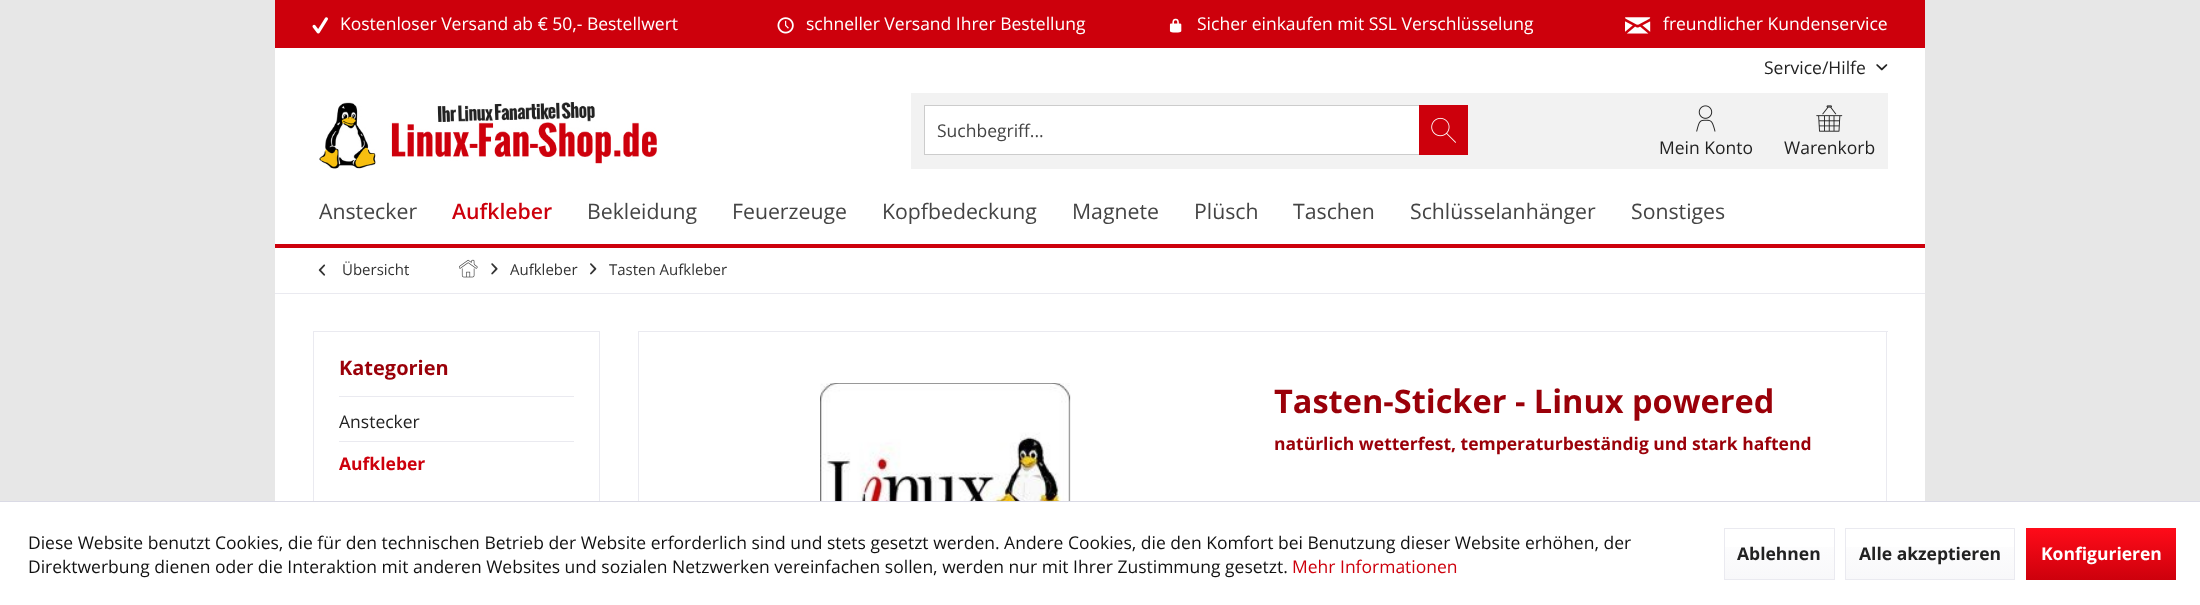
async function draw(canvas) {
  canvas.width = 2200
  canvas.height = 605
  const ctx = canvas.getContext('2d')
  ctx.miterLimit = 4
  ctx.fontKerning = 'normal'
  async function loadImage(src) {
    const img = new Image()
    img.src = src
    await img.decode()
    return img
  }
  let gradient

  ctx.fillStyle = '#e7e7e7'
  ctx.fillRect(0, 0, 2200, 605)
  ctx.fillStyle = '#fff'
  ctx.fillRect(275, 48, 1650, 196)
  ctx.fillStyle = '#cd000c'
  ctx.fillRect(275, 0, 1650, 48)
  ctx.drawImage(await loadImage('image0.png'), 312, 17, 16, 17)
  ctx.font = '17.5px Open Sans'
  ctx.fillStyle = '#fff'
  ctx.fillText('Kostenloser Versand ab € 50,- Bestellwert', 340, 30)
  ctx.drawImage(await loadImage('image1.png'), 777, 17, 17, 17)
  ctx.fillText('schneller Versand Ihrer Bestellung', 806, 30)
  ctx.drawImage(await loadImage('image2.png'), 1169, 18, 13, 15)
  ctx.fillText('Sicher einkaufen mit SSL Verschlüsselung', 1197, 30)
  ctx.drawImage(await loadImage('image3.png'), 1625, 17, 26, 17)
  ctx.fillText('freundlicher Kundenservice', 1663, 30)
  ctx.fillStyle = '#222'
  ctx.fillText('Service/Hilfe', 1764, 74)
  ctx.drawImage(await loadImage('image4.png'), 1876, 64, 12, 7)
  ctx.drawImage(await loadImage('image5.png'), 319, 102, 338, 67)
  ctx.fillStyle = '#f2f2f2'
  ctx.fillRect(911, 93, 977, 76)
  ctx.fillStyle = '#fff'
  ctx.fillRect(925, 106, 494, 48)
  ctx.strokeStyle = '#ccc'
  ctx.strokeRect(924.5, 105.5, 536, 49)
  ctx.fillStyle = '#444'
  ctx.fillText('Suchbegriff...', 937, 137)
  ctx.fillStyle = '#cd000c'
  ctx.fillRect(1419, 105, 49, 50)
  ctx.drawImage(await loadImage('image6.png'), 1431, 117, 25, 26)
  ctx.drawImage(await loadImage('image7.png'), 1696, 105, 20, 27)
  ctx.fillStyle = '#222'
  ctx.fillText('Mein Konto', 1659, 154)
  ctx.drawImage(await loadImage('image8.png'), 1816, 105, 27, 27)
  ctx.fillText('Warenkorb', 1784, 154)
  ctx.fillStyle = '#cd000c'
  ctx.fillRect(275, 244, 1650, 4)
  ctx.font = '21.25px Open Sans'
  ctx.fillStyle = '#444'
  ctx.fillText('Anstecker', 319, 219)
  ctx.font = '600 21.25px Open Sans'
  ctx.fillStyle = '#cd000c'
  ctx.fillText('Aufkleber', 452, 219)
  ctx.font = '21.25px Open Sans'
  ctx.fillStyle = '#444'
  ctx.fillText('Bekleidung', 587, 219)
  ctx.fillText('Feuerzeuge', 732, 219)
  ctx.fillText('Kopfbedeckung', 882, 219)
  ctx.fillText('Magnete', 1072, 219)
  ctx.fillText('Plüsch', 1194, 219)
  ctx.fillText('Taschen', 1293, 219)
  ctx.fillText('Schlüsselanhänger', 1410, 219)
  ctx.fillText('Sonstiges', 1631, 219)
  ctx.fillStyle = '#fff'
  ctx.fillRect(275, 248, 1650, 45)
  ctx.fillStyle = '#eaeaf0'
  ctx.fillRect(275, 293, 1650, 1)
  ctx.drawImage(await loadImage('image9.png'), 318, 264, 8, 12)
  ctx.font = '15px Open Sans'
  ctx.fillStyle = '#333'
  ctx.fillText('Übersicht', 342, 275)
  ctx.drawImage(await loadImage('image10.png'), 459, 259, 19, 19)
  ctx.drawImage(await loadImage('image11.png'), 491, 263, 7, 12)
  ctx.fillText('Aufkleber', 510, 275)
  ctx.drawImage(await loadImage('image12.png'), 590, 263, 7, 12)
  ctx.fillText('Tasten Aufkleber', 609, 275)
  ctx.fillStyle = '#fff'
  ctx.fillRect(275, 294, 1650, 207)
  ctx.fillStyle = '#eaeaf0'
  ctx.fillRect(313, 331, 287, 1)
  ctx.fillRect(599, 331, 1, 69)
  ctx.fillRect(313, 331, 1, 69)
  ctx.font = 'bold 20px Open Sans'
  ctx.fillStyle = '#9a0009'
  ctx.fillText('Kategorien', 339, 375)
  ctx.fillStyle = '#eaeaf0'
  ctx.fillRect(339, 396, 235, 1)
  ctx.fillRect(599, 400, 1, 101)
  ctx.fillRect(313, 400, 1, 101)
  ctx.fillRect(339, 441, 235, 1)
  ctx.font = '17.5px Open Sans'
  ctx.fillStyle = '#222'
  ctx.fillText('Anstecker', 339, 428)
  ctx.font = 'bold 17.5px Open Sans'
  ctx.fillStyle = '#cd000c'
  ctx.fillText('Aufkleber', 339, 470)
  ctx.fillStyle = '#eaeaf0'
  ctx.fillRect(638, 331, 1250, 1)
  ctx.fillRect(1886, 331, 1, 170)
  ctx.fillRect(638, 331, 1, 170)
  ctx.drawImage(await loadImage('image13.png'), 820, 383, 251, 118)
  ctx.font = 'bold 32.5px Open Sans'
  ctx.fillStyle = '#9a0009'
  ctx.fillText('Tasten-Sticker - Linux powered', 1274, 413)
  ctx.font = 'bold 17.5px Open Sans'
  ctx.fillText('natürlich wetterfest, temperaturbeständig und stark haftend', 1274, 450)
  ctx.fillStyle = '#fff'
  ctx.fillRect(0, 502, 2200, 103)
  ctx.fillStyle = '#dadae5'
  ctx.fillRect(0, 501, 2200, 1)
  ctx.font = '17.5px Open Sans'
  ctx.fillStyle = '#111'
  ctx.fillText('Diese Website benutzt Cookies, die für den technischen Betrieb der Website erforderlich sind und stets gesetzt werden. Andere Cookies, die den Komfort bei Benutzung dieser Website erhöhen, der', 28, 549)
  ctx.fillText('Direktwerbung dienen oder die Interaktion mit anderen Websites und sozialen Netzwerken vereinfachen sollen, werden nur mit Ihrer Zustimmung gesetzt.', 28, 573)
  ctx.fillStyle = '#cd000c'
  ctx.fillText('Mehr Informationen', 1292, 573)
  gradient = ctx.createLinearGradient(1779, 529, 1779, 579)
  gradient.addColorStop(0, '#fff')
  gradient.addColorStop(1, '#f8f8fa')
  ctx.fillStyle = gradient
  ctx.fillRect(1725, 547, 109, 32)
  ctx.strokeStyle = '#eaeaf0'
  ctx.strokeRect(1724.5, 528.5, 110, 51)
  ctx.font = 'bold 17.5px Open Sans'
  ctx.fillStyle = '#222'
  ctx.fillText('Ablehnen', 1737, 560)
  gradient = ctx.createLinearGradient(1930, 529, 1930, 579)
  gradient.addColorStop(0, '#fff')
  gradient.addColorStop(1, '#f8f8fa')
  ctx.fillStyle = gradient
  ctx.fillRect(1846, 547, 168, 32)
  ctx.strokeRect(1845.5, 528.5, 169, 51)
  ctx.fillStyle = '#222'
  ctx.fillText('Alle akzeptieren', 1859, 560)
  gradient = ctx.createLinearGradient(2101, 528, 2101, 580)
  gradient.addColorStop(0, '#ff0b19')
  gradient.addColorStop(1, '#cd000c')
  ctx.fillStyle = gradient
  ctx.fillRect(2026, 528, 150, 52)
  ctx.fillStyle = '#fff'
  ctx.fillText('Konfigurieren', 2041, 560)
}

draw(document.querySelector('canvas'))
